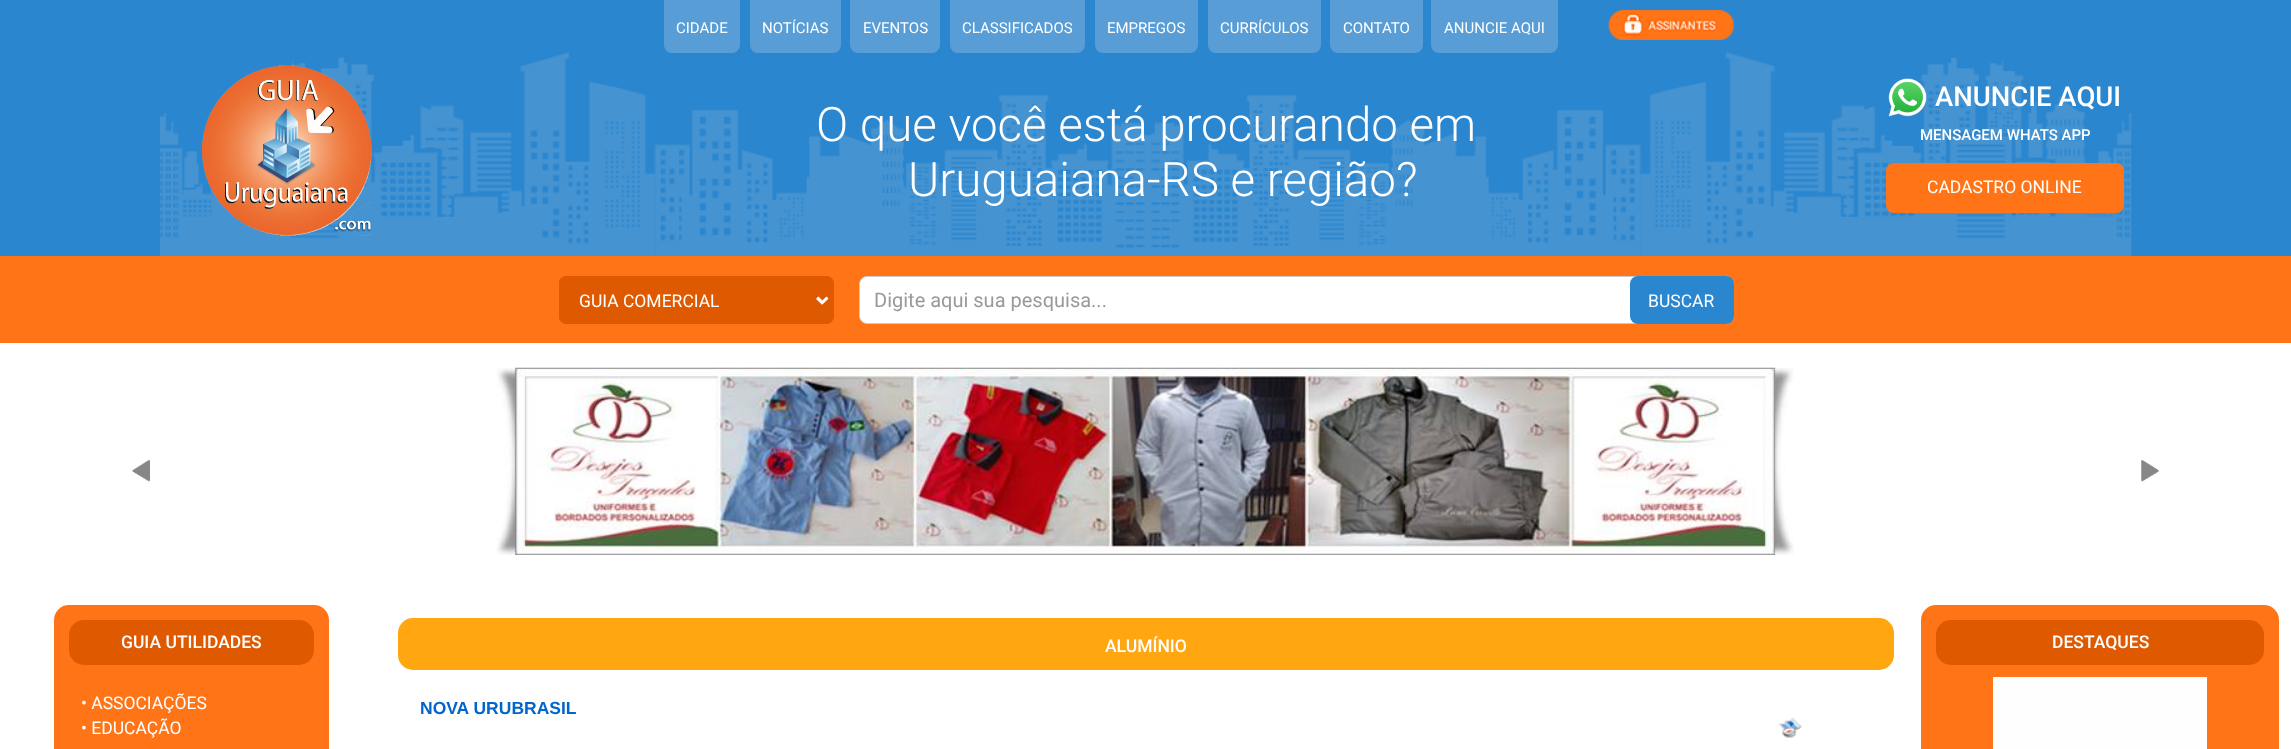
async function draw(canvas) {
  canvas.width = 2291
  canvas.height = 749
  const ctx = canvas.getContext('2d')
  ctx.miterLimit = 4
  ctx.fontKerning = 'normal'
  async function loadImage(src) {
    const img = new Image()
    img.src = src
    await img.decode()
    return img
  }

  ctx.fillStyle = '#2a86cf'
  ctx.fillRect(0, 0, 2291, 749)
  ctx.drawImage(await loadImage('image1.png'), 160, 52, 1972, 204)
  ctx.fillStyle = '#589dd6'
  ctx.beginPath()
  ctx.roundRect(664, 0, 76, 53, [0, 0, 8, 8])
  ctx.fill()
  ctx.font = '15px Roboto'
  ctx.fillStyle = '#fff'
  ctx.fillText('CIDADE', 676, 33)
  ctx.fillStyle = '#589dd6'
  ctx.beginPath()
  ctx.roundRect(750, 0, 91, 53, [0, 0, 8, 8])
  ctx.fill()
  ctx.fillStyle = '#fff'
  ctx.fillText('NOTÍCIAS', 762, 33)
  ctx.fillStyle = '#589dd6'
  ctx.beginPath()
  ctx.roundRect(850, 0, 90, 53, [0, 0, 8, 8])
  ctx.fill()
  ctx.fillStyle = '#fff'
  ctx.fillText('EVENTOS', 863, 33)
  ctx.fillStyle = '#589dd6'
  ctx.beginPath()
  ctx.roundRect(950, 0, 135, 53, [0, 0, 8, 8])
  ctx.fill()
  ctx.fillStyle = '#fff'
  ctx.fillText('CLASSIFICADOS', 962, 33)
  ctx.fillStyle = '#589dd6'
  ctx.beginPath()
  ctx.roundRect(1095, 0, 103, 53, [0, 0, 8, 8])
  ctx.fill()
  ctx.fillStyle = '#fff'
  ctx.fillText('EMPREGOS', 1107, 33)
  ctx.fillStyle = '#589dd6'
  ctx.beginPath()
  ctx.roundRect(1208, 0, 113, 53, [0, 0, 8, 8])
  ctx.fill()
  ctx.fillStyle = '#fff'
  ctx.fillText('CURRÍCULOS', 1220, 33)
  ctx.fillStyle = '#589dd6'
  ctx.beginPath()
  ctx.roundRect(1330, 0, 93, 53, [0, 0, 8, 8])
  ctx.fill()
  ctx.fillStyle = '#fff'
  ctx.fillText('CONTATO', 1343, 33)
  ctx.fillStyle = '#589dd6'
  ctx.beginPath()
  ctx.roundRect(1431, 0, 127, 53, [0, 0, 8, 8])
  ctx.fill()
  ctx.fillStyle = '#fff'
  ctx.fillText('ANUNCIE AQUI', 1444, 33)
  ctx.drawImage(await loadImage('image0.png'), 1608, 10, 126, 30)
  ctx.drawImage(await loadImage('image2.png'), 202, 65, 171, 171)
  ctx.font = '300 47.5px Roboto'
  ctx.fillText('O que você está procurando em', 816, 141)
  ctx.fillText('Uruguaiana-RS e região?', 908, 196)
  ctx.drawImage(await loadImage('image3.png'), 1888, 78, 39, 39)
  ctx.font = '500 27.5px Roboto'
  ctx.fillText('ANUNCIE AQUI', 1935, 106)
  ctx.font = '500 15px Roboto'
  ctx.fillText('MENSAGEM WHATS APP', 1920, 140)
  ctx.fillStyle = '#ff7417'
  ctx.beginPath()
  ctx.roundRect(1886, 163, 238, 50, 8)
  ctx.fill()
  ctx.font = '17.5px Roboto'
  ctx.fillStyle = '#fff'
  ctx.fillText('CADASTRO ONLINE', 1927, 193)
  ctx.fillStyle = '#ff7417'
  ctx.fillRect(0, 256, 2291, 87)
  ctx.fillStyle = '#df5900'
  ctx.beginPath()
  ctx.roundRect(559, 276, 275, 48, 8)
  ctx.fill()
  ctx.drawImage(await loadImage('image4.png'), 559, 276, 273, 48)
  ctx.beginPath()
  ctx.roundRect(559.5, 276.5, 274, 47, 7.5)
  ctx.strokeStyle = '#df5900'
  ctx.stroke()
  ctx.beginPath()
  ctx.moveTo(817, 298)
  ctx.lineTo(822, 303)
  ctx.lineTo(827, 298)
  ctx.strokeStyle = '#fff'
  ctx.lineWidth = 2.5
  ctx.stroke()
  ctx.fillStyle = '#fff'
  ctx.fillText('GUIA COMERCIAL', 579, 307)
  ctx.beginPath()
  ctx.roundRect(859.5, 276.5, 874, 47, 7.5)
  ctx.fill()
  ctx.strokeStyle = '#ccc'
  ctx.lineWidth = 1
  ctx.stroke()
  ctx.font = '20px Roboto'
  ctx.fillStyle = '#999'
  ctx.fillText('Digite aqui sua pesquisa...', 874, 307)
  ctx.fillStyle = '#2a86cf'
  ctx.beginPath()
  ctx.roundRect(1630, 276, 104, 48, 8)
  ctx.fill()
  ctx.font = '17.5px Roboto'
  ctx.fillStyle = '#fff'
  ctx.fillText('BUSCAR', 1648, 307)
  ctx.fillRect(0, 343, 2291, 406)
  ctx.drawImage(await loadImage('image5.png'), 132, 460, 18, 22)
  ctx.drawImage(await loadImage('image6.png'), 496, 367, 1298, 188)
  ctx.drawImage(await loadImage('image7.png'), 2141, 460, 18, 22)
  ctx.fillStyle = '#ff7417'
  ctx.beginPath()
  ctx.roundRect(54, 605, 275, 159, 15)
  ctx.fill()
  ctx.fillStyle = '#df5900'
  ctx.beginPath()
  ctx.roundRect(69, 620, 245, 45, 15)
  ctx.fill()
  ctx.font = '500 17.5px Roboto'
  ctx.fillStyle = '#fff'
  ctx.fillText('GUIA UTILIDADES', 121, 648)
  ctx.font = '17.5px Roboto'
  ctx.fillText('• ASSOCIAÇÕES', 81, 709)
  ctx.fillText('• EDUCAÇÃO', 81, 734)
  ctx.fillStyle = '#ffa610'
  ctx.beginPath()
  ctx.roundRect(398, 618, 1496, 52, 15)
  ctx.fill()
  ctx.font = '500 17.5px Roboto'
  ctx.fillStyle = '#fff'
  ctx.fillText('ALUMÍNIO', 1105, 652)
  ctx.font = 'bold 17.5px Liberation Sans'
  ctx.fillStyle = '#06c'
  ctx.fillText('NOVA URUBRASIL', 420, 714)
  ctx.drawImage(await loadImage('image8.png'), 1778, 717, 24, 21)
  ctx.fillStyle = '#ff7417'
  ctx.beginPath()
  ctx.roundRect(1921, 605, 358, 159, 15)
  ctx.fill()
  ctx.fillStyle = '#df5900'
  ctx.beginPath()
  ctx.roundRect(1936, 620, 328, 45, 15)
  ctx.fill()
  ctx.font = '500 17.5px Roboto'
  ctx.fillStyle = '#fff'
  ctx.fillText('DESTAQUES', 2052, 648)
  ctx.fillStyle = '#fefefe'
  ctx.fillRect(1993, 677, 214, 72)
}

draw(document.querySelector('canvas'))
